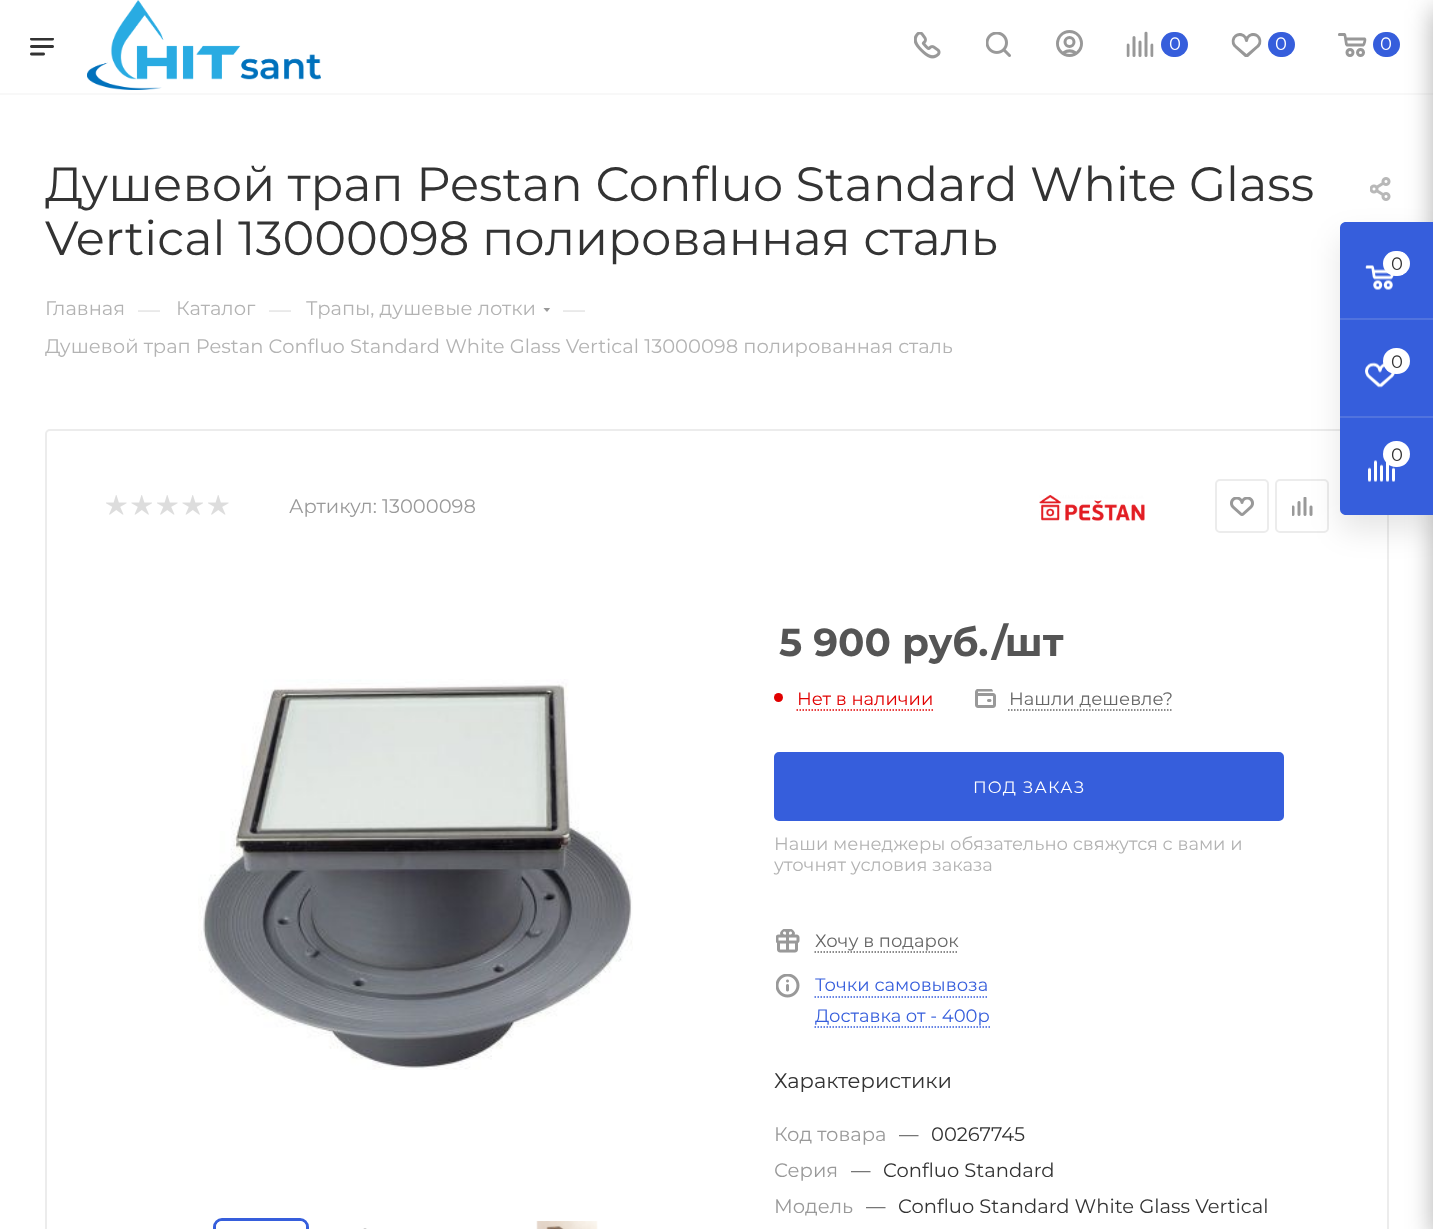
async function draw(canvas) {
  canvas.width = 1433
  canvas.height = 1229
  const ctx = canvas.getContext('2d')
  ctx.miterLimit = 4
  ctx.fontKerning = 'normal'
  async function loadImage(src) {
    const img = new Image()
    img.src = src
    await img.decode()
    return img
  }

  ctx.fillStyle = '#fff'
  ctx.fillRect(0, 0, 1433, 1229)
  ctx.fillStyle = '#f8f8f8'
  ctx.fillRect(0, 93, 1433, 2)
  ctx.drawImage(await loadImage('image0.png'), 30, 38, 24, 18)
  ctx.drawImage(await loadImage('image1.png'), 87, 0, 234, 90)
  ctx.drawImage(await loadImage('image2.png'), 914, 32, 27, 27)
  ctx.drawImage(await loadImage('image3.png'), 986, 32, 25, 25)
  ctx.drawImage(await loadImage('image4.png'), 1056, 30, 27, 27)
  ctx.drawImage(await loadImage('image5.png'), 1126, 31, 28, 26)
  ctx.fillStyle = '#365edc'
  ctx.beginPath()
  ctx.roundRect(1161, 32, 27, 25, 12.5)
  ctx.fill()
  ctx.font = '18px Montserrat'
  ctx.fillStyle = '#fff'
  ctx.fillText('0', 1169, 50)
  ctx.drawImage(await loadImage('image6.png'), 1231, 33, 31, 24)
  ctx.fillStyle = '#365edc'
  ctx.beginPath()
  ctx.roundRect(1268, 32, 27, 25, 12.5)
  ctx.fill()
  ctx.fillStyle = '#fff'
  ctx.fillText('0', 1275, 50)
  ctx.drawImage(await loadImage('image7.png'), 1338, 33, 29, 24)
  ctx.fillStyle = '#365edc'
  ctx.beginPath()
  ctx.roundRect(1373, 32, 27, 25, 12.5)
  ctx.fill()
  ctx.fillStyle = '#fff'
  ctx.fillText('0', 1380, 50)
  ctx.font = '48px Montserrat'
  ctx.fillStyle = '#333'
  ctx.fillText('Душевой трап Pestan Confluo Standard White Glass', 45, 201)
  ctx.fillText('Vertical 13000098 полированная сталь', 45, 255)
  ctx.drawImage(await loadImage('image8.png'), 1370, 177, 21, 24)
  ctx.font = '19.5px Montserrat'
  ctx.fillStyle = '#b3b3b3'
  ctx.fillText('Главная', 45, 315)
  ctx.font = '22px Montserrat'
  ctx.fillStyle = '#ddd'
  ctx.fillText('—', 138, 317)
  ctx.font = '19.5px Montserrat'
  ctx.fillStyle = '#b3b3b3'
  ctx.fillText('Каталог', 176, 315)
  ctx.font = '22px Montserrat'
  ctx.fillStyle = '#ddd'
  ctx.fillText('—', 269, 317)
  ctx.font = '19.5px Montserrat'
  ctx.fillStyle = '#b3b3b3'
  ctx.fillText('Трапы, душевые лотки', 306, 315)
  ctx.save()
  ctx.beginPath()
  ctx.rect(543, 308, 8, 5)
  ctx.clip()
  ctx.fillStyle = '#999'
  ctx.beginPath()
  ctx.moveTo(543, 307.5)
  ctx.lineTo(550.5, 307.5)
  ctx.lineTo(547, 312)
  ctx.closePath()
  ctx.fill('evenodd')
  ctx.restore()
  ctx.font = '22px Montserrat'
  ctx.fillStyle = '#ddd'
  ctx.fillText('—', 563, 317)
  ctx.font = '19.5px Montserrat'
  ctx.fillStyle = '#b3b3b3'
  ctx.fillText('Душевой трап Pestan Confluo Standard White Glass Vertical 13000098 полированная сталь', 45, 353)
  ctx.beginPath()
  ctx.roundRect(46, 430, 1342, 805, 4)
  ctx.strokeStyle = '#ececec'
  ctx.lineWidth = 2
  ctx.stroke()
  ctx.drawImage(await loadImage('image9.png'), 106, 495, 21, 20)
  ctx.drawImage(await loadImage('image10.png'), 131, 495, 21, 20)
  ctx.drawImage(await loadImage('image9.png'), 157, 495, 21, 20)
  ctx.drawImage(await loadImage('image10.png'), 182, 495, 21, 20)
  ctx.drawImage(await loadImage('image9.png'), 208, 495, 21, 20)
  ctx.fillStyle = '#999'
  ctx.fillText('Артикул: 13000098', 289, 513)
  ctx.drawImage(await loadImage('image11.png'), 1039, 495, 106, 26)
  ctx.beginPath()
  ctx.roundRect(1216, 480, 52, 52, 4)
  ctx.stroke()
  ctx.drawImage(await loadImage('image12.png'), 1230, 497, 24, 19)
  ctx.beginPath()
  ctx.roundRect(1276, 480, 52, 52, 4)
  ctx.stroke()
  ctx.drawImage(await loadImage('image13.png'), 1292, 497, 21, 19)
  ctx.drawImage(await loadImage('image14.png'), 198, 679, 435, 391)
  ctx.beginPath()
  ctx.roundRect(214.5, 1219.5, 93, 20, 7.5)
  ctx.strokeStyle = '#365edc'
  ctx.lineWidth = 3
  ctx.stroke()
  ctx.drawImage(await loadImage('image15.png'), 216, 1221, 90, 6)
  ctx.drawImage(await loadImage('image16.png'), 363, 1228, 4, 1)
  ctx.drawImage(await loadImage('image17.png'), 536, 1221, 62, 8)
  ctx.font = 'bold 39px Montserrat'
  ctx.fillStyle = '#555'
  ctx.fillText('5 900 руб./шт', 779, 656)
  ctx.fillStyle = '#e10000'
  ctx.beginPath()
  ctx.arc(778.5, 697.5, 4.5, 0, 2 * Math.PI)
  ctx.fill()
  ctx.font = '18px Montserrat'
  ctx.fillText('Нет в наличии', 797, 705)
  ctx.beginPath()
  ctx.moveTo(796.5, 710)
  ctx.lineTo(933, 710)
  ctx.strokeStyle = '#e10000'
  ctx.lineWidth = 1.5
  ctx.setLineDash([1.5, 1.5])
  ctx.stroke()
  ctx.drawImage(await loadImage('image18.png'), 975, 689, 21, 19)
  ctx.fillStyle = '#666'
  ctx.fillText('Нашли дешевле?', 1009, 705)
  ctx.beginPath()
  ctx.moveTo(1008, 710)
  ctx.lineTo(1173, 710)
  ctx.strokeStyle = '#666'
  ctx.stroke()
  ctx.fillStyle = '#365edc'
  ctx.beginPath()
  ctx.roundRect(775, 753, 508, 67, 4)
  ctx.fill()
  ctx.strokeStyle = '#365edc'
  ctx.lineWidth = 2
  ctx.setLineDash([])
  ctx.stroke()
  ctx.letterSpacing = '1.25px'
  ctx.font = '16.5px Montserrat'
  ctx.fillStyle = '#fff'
  ctx.fillText('ПОД ЗАКАЗ', 973, 793)
  ctx.letterSpacing = '0px'
  ctx.font = '18px Montserrat'
  ctx.fillStyle = '#b3b3b3'
  ctx.fillText('Наши менеджеры обязательно свяжутся с вами и', 774, 850)
  ctx.fillText('уточнят условия заказа', 774, 871)
  ctx.drawImage(await loadImage('image19.png'), 776, 929, 24, 24)
  ctx.fillStyle = '#666'
  ctx.fillText('Хочу в подарок', 815, 947)
  ctx.beginPath()
  ctx.moveTo(814.5, 952)
  ctx.lineTo(958.5, 952)
  ctx.strokeStyle = '#666'
  ctx.lineWidth = 1.5
  ctx.setLineDash([1.5, 1.5])
  ctx.stroke()
  ctx.drawImage(await loadImage('image20.png'), 776, 974, 24, 24)
  ctx.fillStyle = '#365edc'
  ctx.fillText('Точки самовывоза', 815, 991)
  ctx.beginPath()
  ctx.moveTo(814.5, 997)
  ctx.lineTo(988.5, 997)
  ctx.strokeStyle = '#365edc'
  ctx.stroke()
  ctx.fillText('Доставка от - 400р', 815, 1022)
  ctx.beginPath()
  ctx.moveTo(814.5, 1027)
  ctx.lineTo(990, 1027)
  ctx.stroke()
  ctx.font = '21px Montserrat'
  ctx.fillStyle = '#333'
  ctx.fillText('Характеристики', 774, 1088)
  ctx.font = '19.5px Montserrat'
  ctx.fillStyle = '#999'
  ctx.fillText('Код товара', 774, 1141)
  ctx.fillStyle = '#555'
  ctx.fillText('—', 899, 1141)
  ctx.fillStyle = '#333'
  ctx.fillText('00267745', 931, 1141)
  ctx.fillStyle = '#999'
  ctx.fillText('Серия', 774, 1177)
  ctx.fillStyle = '#555'
  ctx.fillText('—', 851, 1177)
  ctx.fillStyle = '#333'
  ctx.fillText('Confluo Standard', 883, 1177)
  ctx.fillStyle = '#999'
  ctx.fillText('Модель', 774, 1213)
  ctx.fillStyle = '#555'
  ctx.fillText('—', 866, 1213)
  ctx.fillStyle = '#333'
  ctx.fillText('Confluo Standard White Glass Vertical', 898, 1213)
  ctx.fillStyle = '#2c2c2c66'
  ctx.filter = 'blur(13.5px)'
  ctx.beginPath()
  ctx.roundRect(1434, 9, 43, 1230, 3)
  ctx.fill()
  ctx.filter = 'none'
  ctx.fillStyle = '#0000001a'
  ctx.filter = 'blur(15px)'
  ctx.beginPath()
  ctx.roundRect(1340, 237, 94, 293, 6)
  ctx.fill()
  ctx.filter = 'none'
  ctx.fillStyle = '#365edc'
  ctx.beginPath()
  ctx.moveTo(1346, 222)
  ctx.lineTo(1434, 222)
  ctx.lineTo(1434, 515)
  ctx.lineTo(1346, 515)
  ctx.bezierCurveTo(1342.5, 515, 1340, 512.5, 1340, 509)
  ctx.lineTo(1340, 228)
  ctx.bezierCurveTo(1340, 224.5, 1342.5, 222, 1346, 222)
  ctx.closePath()
  ctx.fill()
  ctx.fillStyle = '#5173de'
  ctx.fillRect(1340, 318, 93, 2)
  ctx.drawImage(await loadImage('image21.png'), 1365, 265, 29, 25)
  ctx.fillStyle = '#fff'
  ctx.beginPath()
  ctx.roundRect(1383, 251, 27, 25, 12.5)
  ctx.fill()
  ctx.font = '18px Montserrat'
  ctx.fillStyle = '#333'
  ctx.fillText('0', 1391, 270)
  ctx.fillStyle = '#fff'
  ctx.fillRect(1402, 252, 1, 23)
  ctx.fillStyle = '#5173de'
  ctx.fillRect(1340, 416, 93, 2)
  ctx.drawImage(await loadImage('image22.png'), 1365, 362, 30, 26)
  ctx.fillStyle = '#fff'
  ctx.beginPath()
  ctx.roundRect(1383, 348, 27, 26, 13)
  ctx.fill()
  ctx.fillStyle = '#333'
  ctx.fillText('0', 1391, 368)
  ctx.drawImage(await loadImage('image23.png'), 1368, 460, 27, 22)
  ctx.fillStyle = '#fff'
  ctx.beginPath()
  ctx.roundRect(1383, 441, 27, 26, 13)
  ctx.fill()
  ctx.fillStyle = '#333'
  ctx.fillText('0', 1391, 461)
}

draw(document.querySelector('canvas'))
